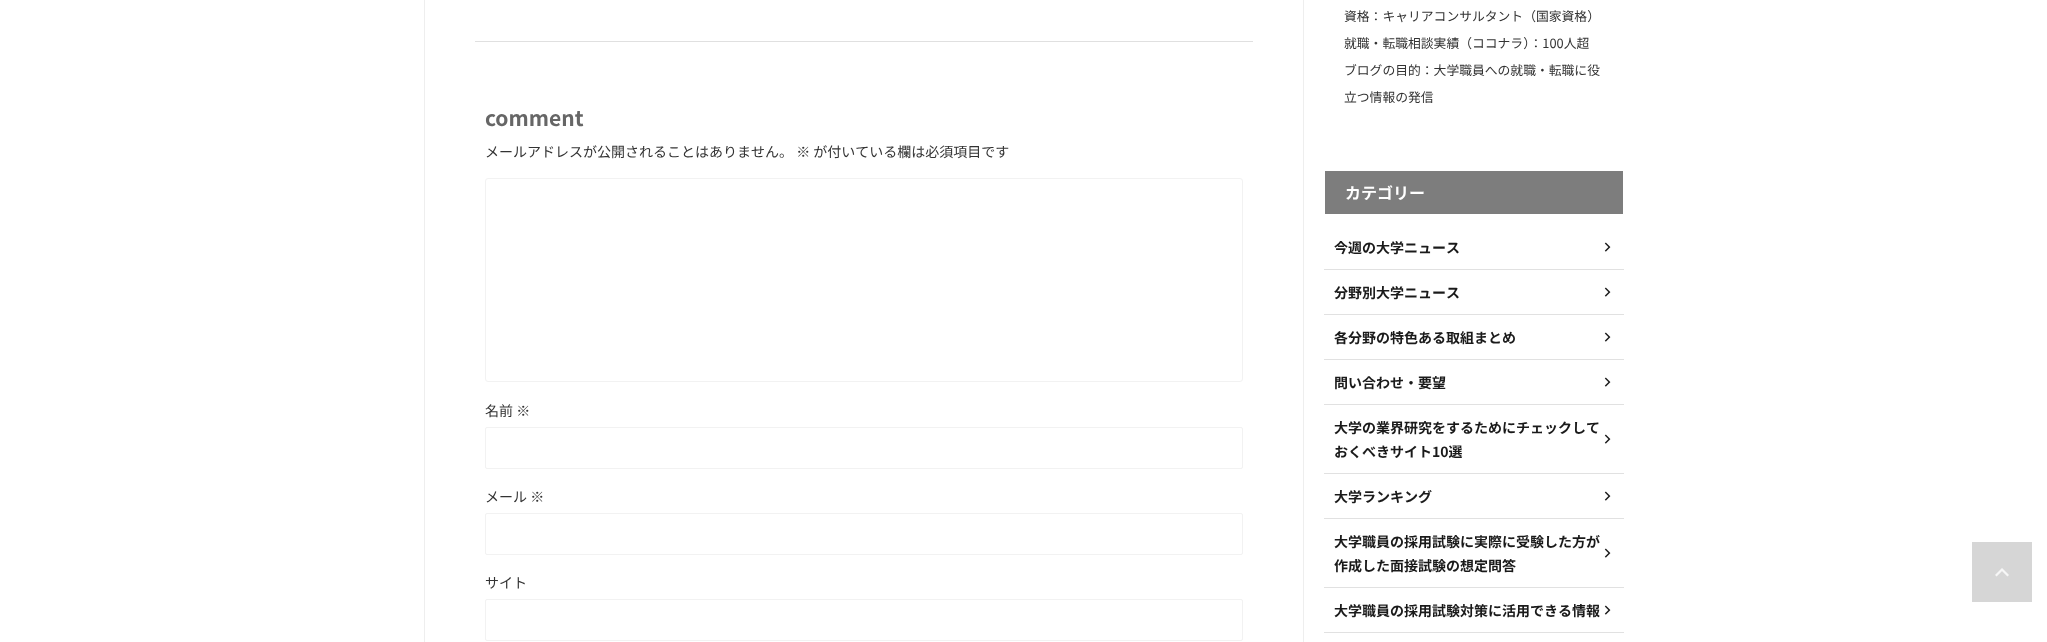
async function draw(canvas) {
  canvas.width = 2047
  canvas.height = 642
  const ctx = canvas.getContext('2d')
  ctx.miterLimit = 4
  ctx.fontKerning = 'normal'
  async function loadImage(src) {
    const img = new Image()
    img.src = src
    await img.decode()
    return img
  }

  ctx.fillStyle = '#fff'
  ctx.fillRect(0, 0, 2047, 642)
  ctx.strokeStyle = '#eee'
  ctx.strokeRect(424.5, -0.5, 879, 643)
  ctx.fillStyle = '#e0e0e0'
  ctx.fillRect(475, 41, 778, 1)
  ctx.font = 'bold 21px Noto Sans JP'
  ctx.fillStyle = '#666'
  ctx.fillText('comment', 485, 126)
  ctx.font = '14px Noto Sans JP'
  ctx.fillStyle = '#333'
  ctx.fillText('メールアドレスが公開されることはありません。 ※ が付いている欄は必須項目です', 485, 157)
  ctx.beginPath()
  ctx.roundRect(485.5, 178.5, 757, 203, 2.5)
  ctx.strokeStyle = '#f2f2f2'
  ctx.stroke()
  ctx.fillText('名前 ※', 485, 416)
  ctx.beginPath()
  ctx.roundRect(485.5, 427.5, 757, 41, 1.5)
  ctx.stroke()
  ctx.fillText('メール ※', 485, 502)
  ctx.beginPath()
  ctx.roundRect(485.5, 513.5, 757, 41, 1.5)
  ctx.stroke()
  ctx.fillText('サイト', 485, 588)
  ctx.beginPath()
  ctx.roundRect(485.5, 599.5, 757, 41, 1.5)
  ctx.stroke()
  ctx.font = '12.8px Noto Sans JP'
  ctx.fillText('資格：キャリアコンサルタント（国家資格）', 1344, 21)
  ctx.fillText('就職・転職相談実績（ココナラ）：100人超', 1344, 48)
  ctx.fillText('ブログの目的：大学職員への就職・転職に役', 1344, 75)
  ctx.fillText('立つ情報の発信', 1344, 102)
  ctx.fillStyle = '#7d7d7d'
  ctx.fillRect(1325, 171, 298, 43)
  ctx.font = 'bold 16px Noto Sans JP'
  ctx.fillStyle = '#fff'
  ctx.fillText('カテゴリー', 1345, 199)
  ctx.fillStyle = '#e1e1e1'
  ctx.fillRect(1324, 269, 300, 1)
  ctx.font = 'bold 14px Noto Sans JP'
  ctx.fillStyle = '#1a1a1a'
  ctx.fillText('今週の大学ニュース', 1334, 253)
  ctx.drawImage(await loadImage('image0.png'), 1604, 242, 7, 10)
  ctx.fillStyle = '#e1e1e1'
  ctx.fillRect(1324, 314, 300, 1)
  ctx.fillStyle = '#1a1a1a'
  ctx.fillText('分野別大学ニュース', 1334, 298)
  ctx.drawImage(await loadImage('image0.png'), 1604, 287, 7, 10)
  ctx.fillStyle = '#e1e1e1'
  ctx.fillRect(1324, 359, 300, 1)
  ctx.fillStyle = '#1a1a1a'
  ctx.fillText('各分野の特色ある取組まとめ', 1334, 343)
  ctx.drawImage(await loadImage('image0.png'), 1604, 332, 7, 10)
  ctx.fillStyle = '#e1e1e1'
  ctx.fillRect(1324, 404, 300, 1)
  ctx.fillStyle = '#1a1a1a'
  ctx.fillText('問い合わせ・要望', 1334, 388)
  ctx.drawImage(await loadImage('image0.png'), 1604, 377, 7, 10)
  ctx.fillStyle = '#e1e1e1'
  ctx.fillRect(1324, 473, 300, 1)
  ctx.fillStyle = '#1a1a1a'
  ctx.fillText('大学の業界研究をするためにチェックして', 1334, 433)
  ctx.fillText('おくべきサイト10選', 1334, 457)
  ctx.drawImage(await loadImage('image0.png'), 1604, 434, 7, 10)
  ctx.fillStyle = '#e1e1e1'
  ctx.fillRect(1324, 518, 300, 1)
  ctx.fillStyle = '#1a1a1a'
  ctx.fillText('大学ランキング', 1334, 502)
  ctx.drawImage(await loadImage('image0.png'), 1604, 491, 7, 10)
  ctx.fillStyle = '#e1e1e1'
  ctx.fillRect(1324, 587, 300, 1)
  ctx.fillStyle = '#1a1a1a'
  ctx.fillText('大学職員の採用試験に実際に受験した方が', 1334, 547)
  ctx.fillText('作成した面接試験の想定問答', 1334, 571)
  ctx.drawImage(await loadImage('image0.png'), 1604, 548, 7, 10)
  ctx.fillStyle = '#e1e1e1'
  ctx.fillRect(1324, 632, 300, 1)
  ctx.fillStyle = '#1a1a1a'
  ctx.fillText('大学職員の採用試験対策に活用できる情報', 1334, 616)
  ctx.drawImage(await loadImage('image0.png'), 1604, 605, 7, 10)
  ctx.fillStyle = '#d6d6d6'
  ctx.fillRect(1972, 542, 60, 60)
  ctx.drawImage(await loadImage('image1.png'), 1995, 568, 14, 9)
}

draw(document.querySelector('canvas'))
